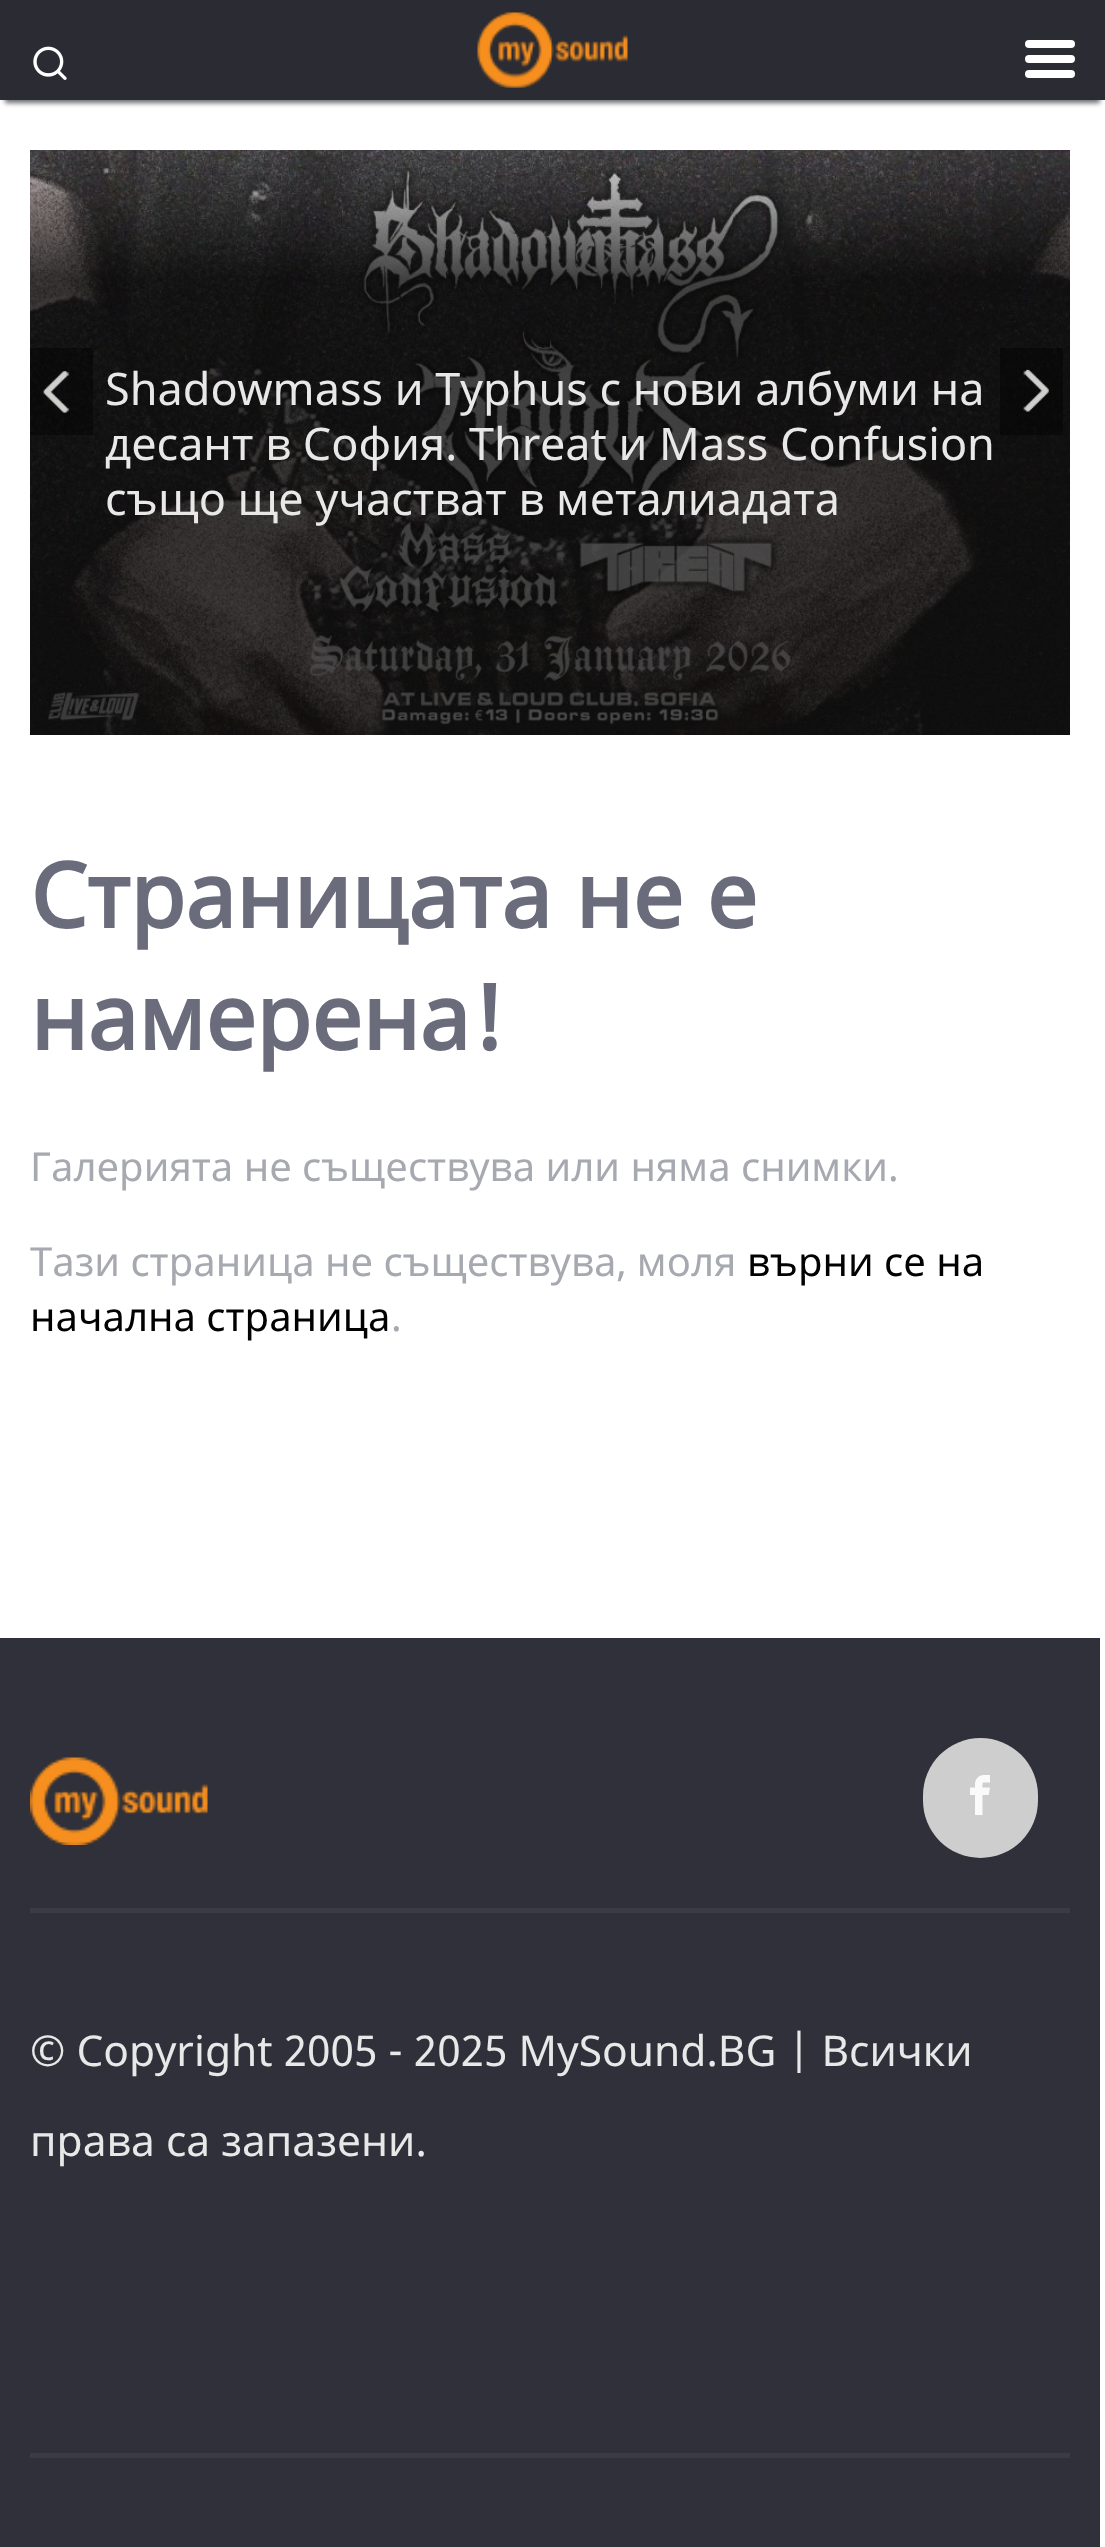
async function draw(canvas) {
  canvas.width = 1105
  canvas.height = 2547
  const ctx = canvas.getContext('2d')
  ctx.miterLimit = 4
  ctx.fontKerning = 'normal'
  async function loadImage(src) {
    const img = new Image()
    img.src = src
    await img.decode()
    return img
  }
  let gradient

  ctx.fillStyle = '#fff'
  ctx.fillRect(0, 0, 1105, 2547)
  ctx.fillStyle = '#2a2b35b3'
  ctx.filter = 'blur(2.5px)'
  ctx.beginPath()
  ctx.rect(5, 13, 1095, 90)
  ctx.fill()
  ctx.filter = 'none'
  ctx.fillStyle = '#2a2b33'
  ctx.fillRect(0, 0, 1105, 100)
  ctx.drawImage(await loadImage('image0.png'), 33, 46, 34, 34)
  ctx.drawImage(await loadImage('image1.png'), 477, 12, 151, 76)
  ctx.fillStyle = '#fff'
  ctx.beginPath()
  ctx.roundRect(1025, 40, 50, 8, 4)
  ctx.fill()
  ctx.beginPath()
  ctx.roundRect(1025, 55, 50, 8, 4)
  ctx.fill()
  ctx.beginPath()
  ctx.roundRect(1025, 70, 50, 8, 4)
  ctx.fill()
  ctx.drawImage(await loadImage('image3.png'), 30, 150, 1040, 585)
  gradient = ctx.createLinearGradient(550, 150, 550, 735)
  gradient.addColorStop(0, '#00000000')
  gradient.addColorStop(0.22, '#000000b3')
  ctx.fillStyle = gradient
  ctx.fillRect(30, 155, 1040, 580)
  ctx.fillStyle = '#00000066'
  ctx.fillRect(30, 348, 63, 87)
  ctx.drawImage(await loadImage('image2.png'), 43, 371, 27, 42)
  ctx.font = '45px Noto Sans'
  ctx.fillStyle = '#e8e8e8'
  ctx.fillText('Shadowmass и Typhus с нови албуми на', 105, 405)
  ctx.fillText('десант в София. Threat и Mass Confusion', 105, 460)
  ctx.fillText('също ще участват в металиадата', 105, 515)
  ctx.fillStyle = '#00000066'
  ctx.fillRect(1000, 348, 63, 87)
  ctx.drawImage(await loadImage('image4.png'), 1023, 369, 26, 43)
  ctx.font = 'bold 90px Noto Sans'
  ctx.fillStyle = '#6a6b7b'
  ctx.fillText('Страницата не е', 30, 928)
  ctx.fillText('намерена!', 30, 1050)
  ctx.font = '40px Noto Sans'
  ctx.fillStyle = '#a7a9b0'
  ctx.fillText('Галерията не съществува или няма снимки.', 30, 1181)
  ctx.fillText('Тази страница не съществува, моля', 30, 1276)
  ctx.fillStyle = '#000'
  ctx.fillText('върни се на', 747, 1276)
  ctx.fillText('начална страница', 30, 1331)
  ctx.fillStyle = '#a7a9b0'
  ctx.fillText('.', 391, 1331)
  ctx.fillStyle = '#2f3039'
  ctx.fillRect(0, 1638, 1100, 909)
  ctx.fillStyle = '#3a3b46'
  ctx.fillRect(30, 1908, 1040, 5)
  ctx.drawImage(await loadImage('image5.png'), 30, 1757, 178, 88)
  ctx.fillStyle = '#cecece'
  ctx.beginPath()
  ctx.roundRect(923, 1738, 115, 120, 57.5)
  ctx.fill()
  ctx.drawImage(await loadImage('image6.png'), 970, 1775, 20, 40)
  ctx.fillStyle = '#3a3b46'
  ctx.fillRect(30, 2453, 1040, 5)
  ctx.font = '42.5px Noto Sans'
  ctx.fillStyle = '#e8e8e8'
  ctx.fillText('© Copyright 2005 - 2025 MySound.BG | Всички', 30, 2066)
  ctx.fillText('права са запазени.', 30, 2156)
}

draw(document.querySelector('canvas'))
